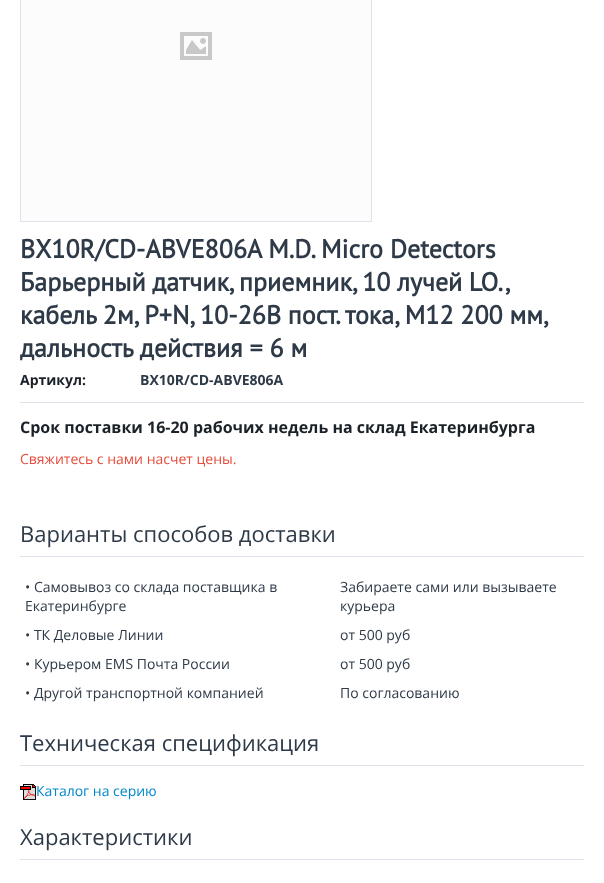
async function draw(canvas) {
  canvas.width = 604
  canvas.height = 883
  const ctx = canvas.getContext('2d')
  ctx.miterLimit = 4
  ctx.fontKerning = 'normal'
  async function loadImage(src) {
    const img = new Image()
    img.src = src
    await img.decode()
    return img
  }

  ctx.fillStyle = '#fff'
  ctx.fillRect(0, 0, 604, 883)
  ctx.strokeStyle = '#dce3ea'
  ctx.strokeRect(20.5, -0.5, 351, 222)
  ctx.fillStyle = '#fcfcfc'
  ctx.fillRect(21, 0, 350, 221)
  ctx.drawImage(await loadImage('image0.png'), 180, 32, 32, 28)
  ctx.font = 'bold 26px PT Sans'
  ctx.fillStyle = '#2e3a47'
  ctx.fillText('BX10R/CD-ABVE806A M.D. Micro Detectors', 20, 258)
  ctx.wordSpacing = '-0.5px'
  ctx.fillText('Барьерный датчик, приемник, 10 лучей LO.,', 20, 291)
  ctx.wordSpacing = '-0.25px'
  ctx.fillText('кабель 2м, P+N, 10-26В пост. тока, M12 200 мм,', 20, 324)
  ctx.wordSpacing = '0px'
  ctx.fillText('дальность действия = 6 м', 20, 357)
  ctx.font = 'bold 14px Open Sans'
  ctx.fillStyle = '#1a2128'
  ctx.fillText('Артикул:', 20, 385)
  ctx.fillStyle = '#2e3a47'
  ctx.fillText('BX10R/CD-ABVE806A', 140, 385)
  ctx.fillStyle = '#dce3ea'
  ctx.fillRect(20, 402, 564, 1)
  ctx.font = 'bold 16px Open Sans'
  ctx.fillStyle = '#1a2128'
  ctx.fillText('Срок поставки 16-20 рабочих недель на склад Екатеринбурга', 20, 433)
  ctx.font = '14px Open Sans'
  ctx.fillStyle = '#e74c3c'
  ctx.fillText('Свяжитесь с нами насчет цены.', 20, 464)
  ctx.fillStyle = '#dce3ea'
  ctx.fillRect(20, 556, 564, 1)
  ctx.font = '22px Open Sans'
  ctx.fillStyle = '#2e3a47'
  ctx.fillText('Варианты способов доставки', 20, 542)
  ctx.font = '14px Open Sans'
  ctx.fillText('• Самовывоз со склада поставщика в', 25, 592)
  ctx.fillText('Екатеринбурге', 25, 611)
  ctx.fillText('Забираете сами или вызываете', 340, 592)
  ctx.fillText('курьера', 340, 611)
  ctx.fillText('• ТК Деловые Линии', 25, 640)
  ctx.fillText('от 500 руб', 340, 640)
  ctx.fillText('• Курьером EMS Почта России', 25, 669)
  ctx.fillText('от 500 руб', 340, 669)
  ctx.fillText('• Другой транспортной компанией', 25, 698)
  ctx.fillText('По согласованию', 340, 698)
  ctx.fillStyle = '#dce3ea'
  ctx.fillRect(20, 765, 564, 1)
  ctx.font = '22px Open Sans'
  ctx.fillStyle = '#2e3a47'
  ctx.fillText('Техническая спецификация', 20, 751)
  ctx.drawImage(await loadImage('image1.png'), 20, 784, 16, 16)
  ctx.font = '14px Open Sans'
  ctx.fillStyle = '#08c'
  ctx.fillText('Каталог на серию', 36, 796)
  ctx.fillStyle = '#dce3ea'
  ctx.fillRect(20, 859, 564, 1)
  ctx.font = '22px Open Sans'
  ctx.fillStyle = '#2e3a47'
  ctx.fillText('Характеристики', 20, 845)
}

draw(document.querySelector('canvas'))
